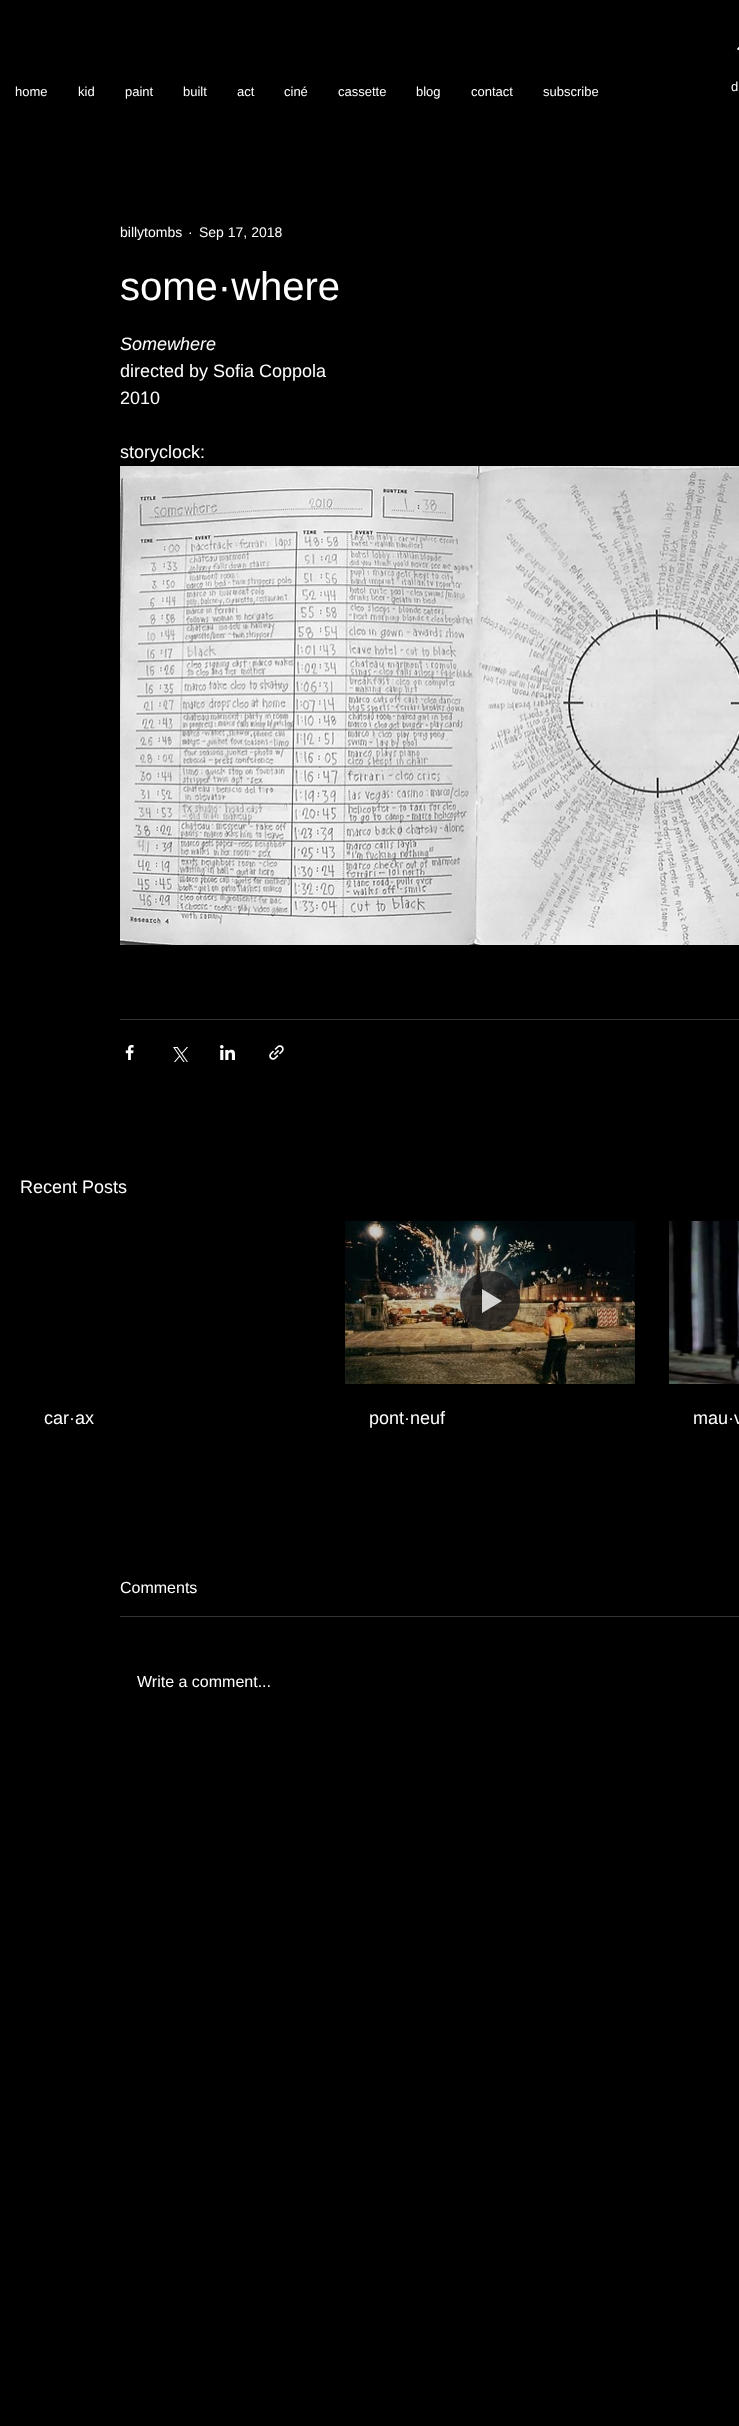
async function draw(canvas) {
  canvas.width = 739
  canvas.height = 2426
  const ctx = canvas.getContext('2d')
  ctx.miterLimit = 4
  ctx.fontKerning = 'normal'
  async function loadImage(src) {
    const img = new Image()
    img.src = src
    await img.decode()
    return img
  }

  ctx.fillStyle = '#000'
  ctx.fillRect(0, 0, 739, 2426)
  ctx.drawImage(await loadImage('image0.png'), 735, 43, 4, 10)
  ctx.font = '13px Liberation Sans'
  ctx.fillStyle = '#fff'
  ctx.fillText('home', 15, 96)
  ctx.fillText('kid', 78, 96)
  ctx.fillText('paint', 125, 96)
  ctx.fillText('built', 183, 96)
  ctx.fillText('act', 237, 96)
  ctx.fillText('ciné', 284, 96)
  ctx.fillText('cassette', 338, 96)
  ctx.fillText('blog', 416, 96)
  ctx.fillText('contact', 471, 96)
  ctx.fillText('subscribe', 543, 96)
  ctx.fillText('d', 731, 91)
  ctx.font = '14px Liberation Sans'
  ctx.fillText('billytombs', 120, 237)
  ctx.fillText('·', 188, 237)
  ctx.fillText('Sep 17, 2018', 199, 237)
  ctx.font = '40px Liberation Sans'
  ctx.fillText('some·where', 120, 300)
  ctx.font = 'italic 18px Liberation Sans'
  ctx.fillText('Somewhere', 120, 350)
  ctx.font = '18px Liberation Sans'
  ctx.fillText('directed by Sofia Coppola', 120, 377)
  ctx.fillText('2010', 120, 404)
  ctx.fillText('storyclock:', 120, 458)
  ctx.drawImage(await loadImage('image1.png'), 120, 466, 619, 479)
  ctx.fillStyle = '#333'
  ctx.fillRect(120, 1019, 619, 1)
  ctx.drawImage(await loadImage('image2.png'), 125, 1045, 9, 15)
  ctx.drawImage(await loadImage('image3.png'), 173, 1047, 15, 15)
  ctx.drawImage(await loadImage('image4.png'), 220, 1045, 15, 15)
  ctx.drawImage(await loadImage('image5.png'), 269, 1045, 15, 15)
  ctx.fillStyle = '#fff'
  ctx.fillText('Recent Posts', 20, 1193)
  ctx.fillText('car·ax', 44, 1424)
  ctx.drawImage(await loadImage('image6.png'), 345, 1221, 290, 163)
  ctx.fillStyle = '#1a1a1acc'
  ctx.beginPath()
  ctx.arc(490, 1301, 30, 0, 2 * Math.PI)
  ctx.fill()
  ctx.fillStyle = '#ffffffcc'
  ctx.beginPath()
  ctx.moveTo(482, 1289)
  ctx.lineTo(482, 1313)
  ctx.lineTo(502, 1301)
  ctx.closePath()
  ctx.fill()
  ctx.fillStyle = '#fff'
  ctx.fillText('pont·neuf', 369, 1424)
  ctx.drawImage(await loadImage('image7.png'), 669, 1221, 70, 163)
  ctx.fillText('mau·v', 693, 1424)
  ctx.font = '16px Liberation Sans'
  ctx.fillText('Comments', 120, 1593)
  ctx.fillStyle = '#333'
  ctx.fillRect(120, 1616, 619, 1)
  ctx.fillStyle = '#fff'
  ctx.fillText('Write a comment...', 137, 1687)
}

draw(document.querySelector('canvas'))
